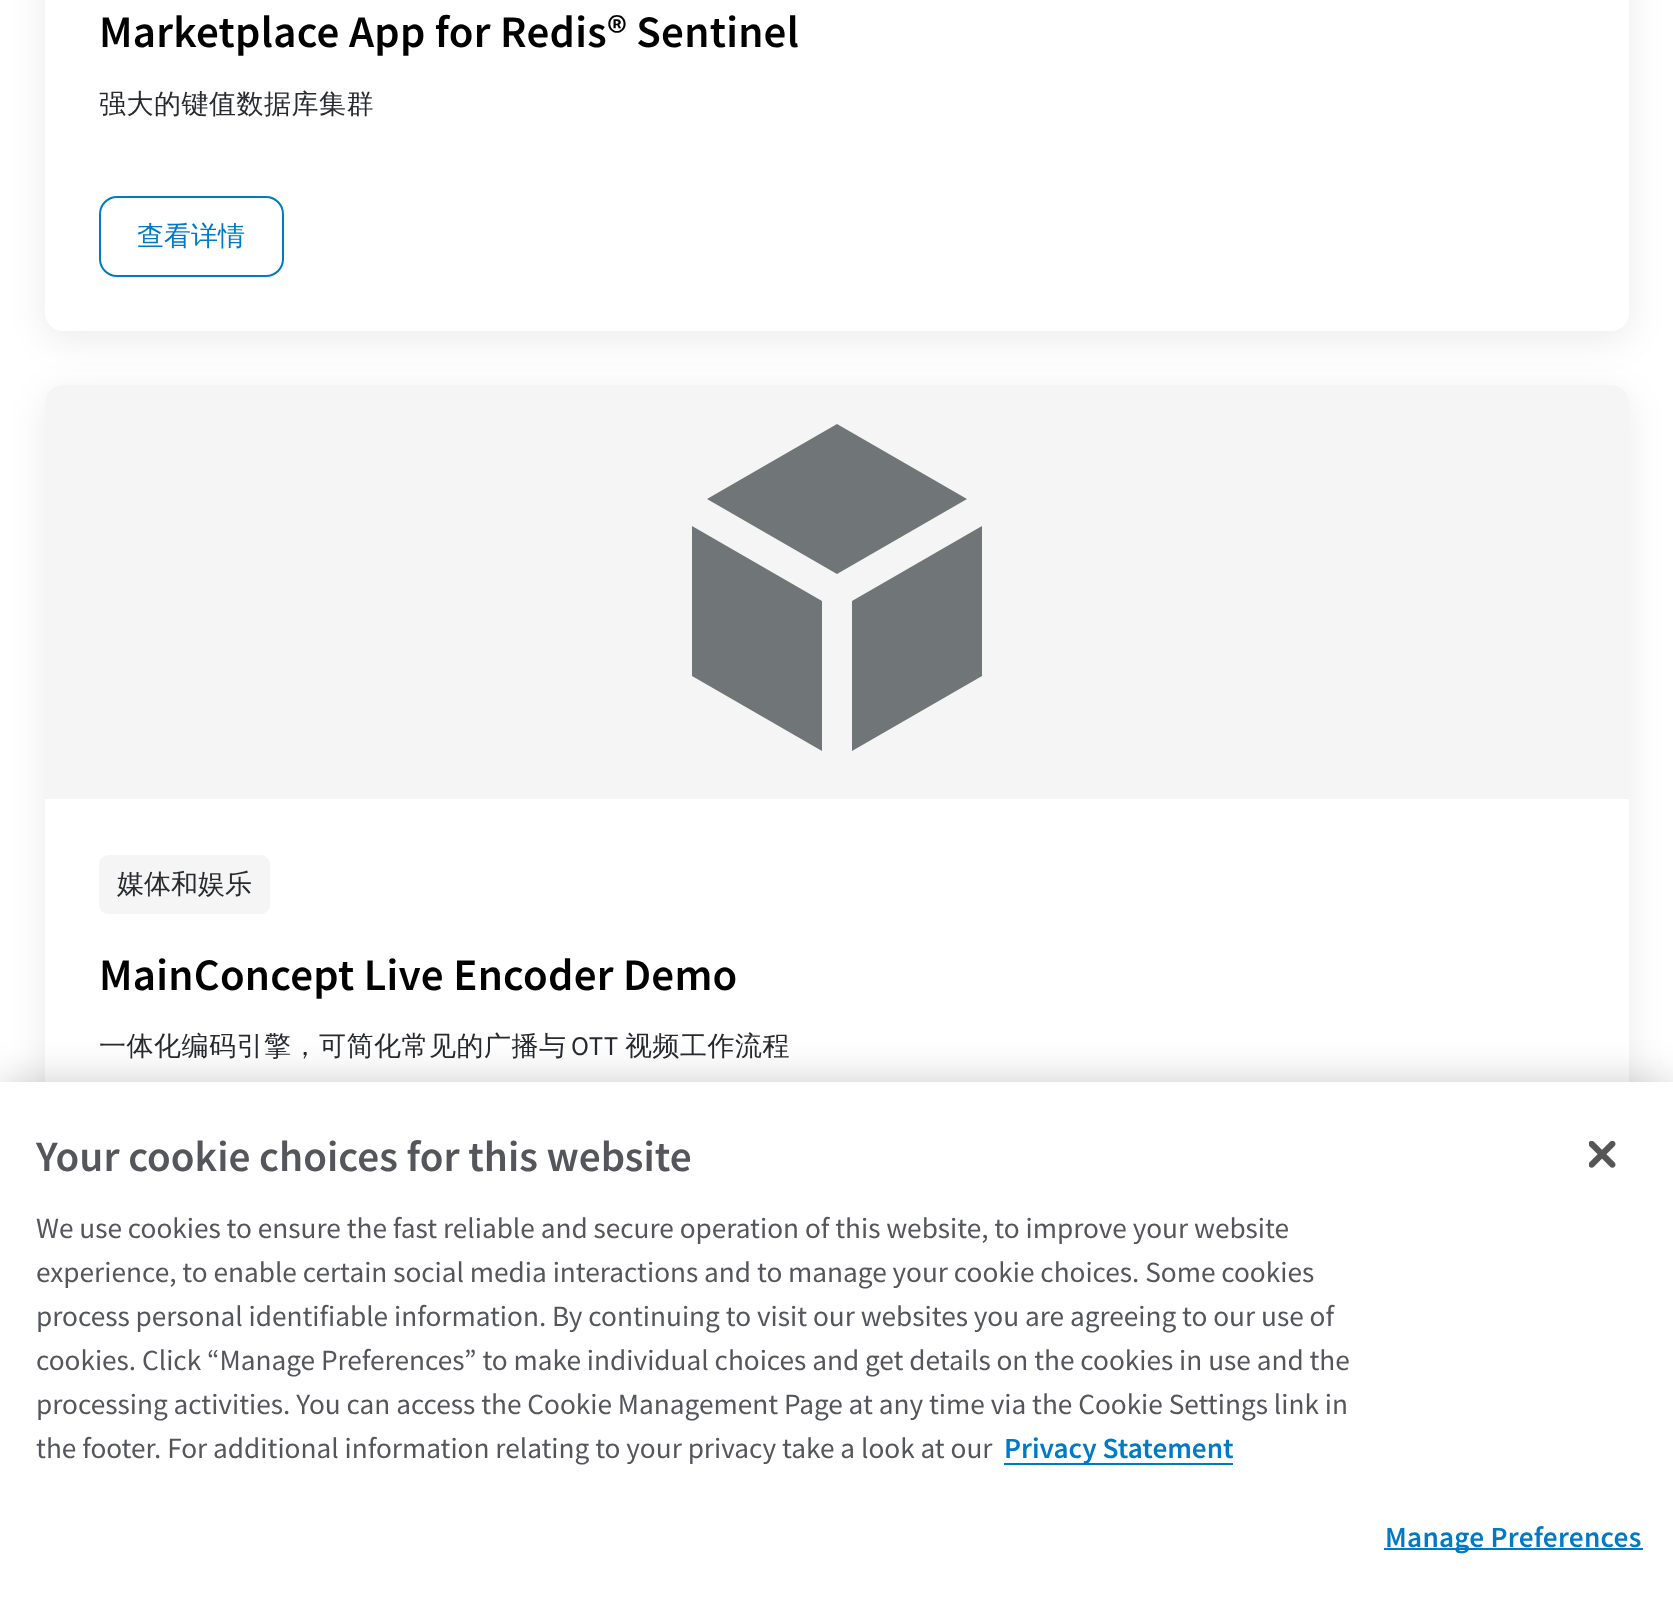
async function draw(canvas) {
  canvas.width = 1673
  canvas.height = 1616
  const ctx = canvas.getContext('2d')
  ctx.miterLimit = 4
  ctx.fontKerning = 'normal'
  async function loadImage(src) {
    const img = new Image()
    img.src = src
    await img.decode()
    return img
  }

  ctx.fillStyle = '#fff'
  ctx.fillRect(0, 0, 1673, 1616)
  ctx.fillStyle = '#00000014'
  ctx.filter = 'blur(18px)'
  ctx.beginPath()
  ctx.roundRect(45, -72, 1584, 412, 18)
  ctx.fill()
  ctx.filter = 'none'
  ctx.fillStyle = '#fff'
  ctx.beginPath()
  ctx.roundRect(45, -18, 1584, 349, 18)
  ctx.fill()
  ctx.letterSpacing = '0.25px'
  ctx.font = '600 45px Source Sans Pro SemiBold'
  ctx.fillStyle = '#000'
  ctx.fillText('Marketplace App for Redis® Sentinel', 99, 47)
  ctx.letterSpacing = '0.5px'
  ctx.font = '500 27px WenQuanYi Zen Hei'
  ctx.fillStyle = '#272a2e'
  ctx.fillText('强大的键值数据库集群', 99, 113)
  ctx.beginPath()
  ctx.roundRect(100, 197, 183, 79, 17)
  ctx.strokeStyle = '#017ac6'
  ctx.lineWidth = 2
  ctx.stroke()
  ctx.letterSpacing = '0px'
  ctx.fillStyle = '#017ac6'
  ctx.fillText('查看详情', 137, 245)
  ctx.fillStyle = '#00000014'
  ctx.filter = 'blur(18px)'
  ctx.beginPath()
  ctx.roundRect(45, 394, 1584, 889, 18)
  ctx.fill()
  ctx.filter = 'none'
  ctx.fillStyle = '#fff'
  ctx.beginPath()
  ctx.roundRect(45, 385, 1584, 889, 18)
  ctx.fill()
  ctx.fillStyle = '#f4f5f4'
  ctx.beginPath()
  ctx.roundRect(45, 385, 1584, 414, [18, 18, 0, 0])
  ctx.fill()
  ctx.fillStyle = '#707677'
  ctx.beginPath()
  ctx.moveTo(967, 499)
  ctx.lineTo(837, 424)
  ctx.lineTo(707, 499)
  ctx.lineTo(837, 574)
  ctx.closePath()
  ctx.moveTo(692, 526)
  ctx.lineTo(692, 676)
  ctx.lineTo(822, 751)
  ctx.lineTo(822, 601)
  ctx.closePath()
  ctx.moveTo(852, 751)
  ctx.lineTo(982, 676)
  ctx.lineTo(982, 526)
  ctx.lineTo(852, 601)
  ctx.closePath()
  ctx.fill()
  ctx.fillStyle = '#f4f5f4'
  ctx.beginPath()
  ctx.roundRect(99, 855, 171, 59, 9)
  ctx.fill()
  ctx.fillStyle = '#272a2e'
  ctx.fillText('媒体和娱乐', 117, 893)
  ctx.letterSpacing = '0.25px'
  ctx.font = '600 45px Source Sans Pro SemiBold'
  ctx.fillStyle = '#000'
  ctx.fillText('MainConcept Live Encoder Demo', 99, 990)
  ctx.letterSpacing = '0.5px'
  ctx.font = '500 27px WenQuanYi Zen Hei'
  ctx.fillStyle = '#272a2e'
  ctx.fillText('一体化编码引擎，可简化常见的广播与', 99, 1055)
  ctx.font = '27px Source Sans Pro'
  ctx.fillText('OTT', 571, 1055)
  ctx.font = '500 27px WenQuanYi Zen Hei'
  ctx.fillText('视频工作流程', 625, 1055)
  ctx.fillStyle = '#00000033'
  ctx.filter = 'blur(20px)'
  ctx.beginPath()
  ctx.rect(0, 1082, 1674, 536)
  ctx.fill()
  ctx.filter = 'none'
  ctx.fillStyle = '#fff'
  ctx.fillRect(0, 1082, 1673, 534)
  ctx.letterSpacing = '0px'
  ctx.font = '600 43.25px Source Sans Pro SemiBold'
  ctx.fillStyle = '#54565b'
  ctx.fillText('Your cookie choices for this website', 36, 1171)
  ctx.font = '29.25px Source Sans Pro'
  ctx.fillText('We use cookies to ensure the fast reliable and secure operation of this website, to improve your website', 36, 1238)
  ctx.fillText('experience, to enable certain social media interactions and to manage your cookie choices. Some cookies', 36, 1282)
  ctx.fillText('process personal identifiable information. By continuing to visit our websites you are agreeing to our use of', 36, 1326)
  ctx.fillText('cookies. Click “Manage Preferences” to make individual choices and get details on the cookies in use and the', 36, 1370)
  ctx.fillText('processing activities. You can access the Cookie Management Page at any time via the Cookie Settings link in', 36, 1414)
  ctx.fillText('the footer. For additional information relating to your privacy take a look at our', 36, 1458)
  ctx.fillStyle = '#017ac6'
  ctx.fillRect(1004, 1463, 229, 2)
  ctx.font = '600 29.25px Source Sans Pro SemiBold'
  ctx.fillText('Privacy Statement', 1004, 1458)
  ctx.fillRect(1384, 1548, 259, 2)
  ctx.letterSpacing = '0.25px'
  ctx.fillText('Manage Preferences', 1385, 1547)
  ctx.drawImage(await loadImage('image0.png'), 1589, 1141, 27, 27)
}

draw(document.querySelector('canvas'))
